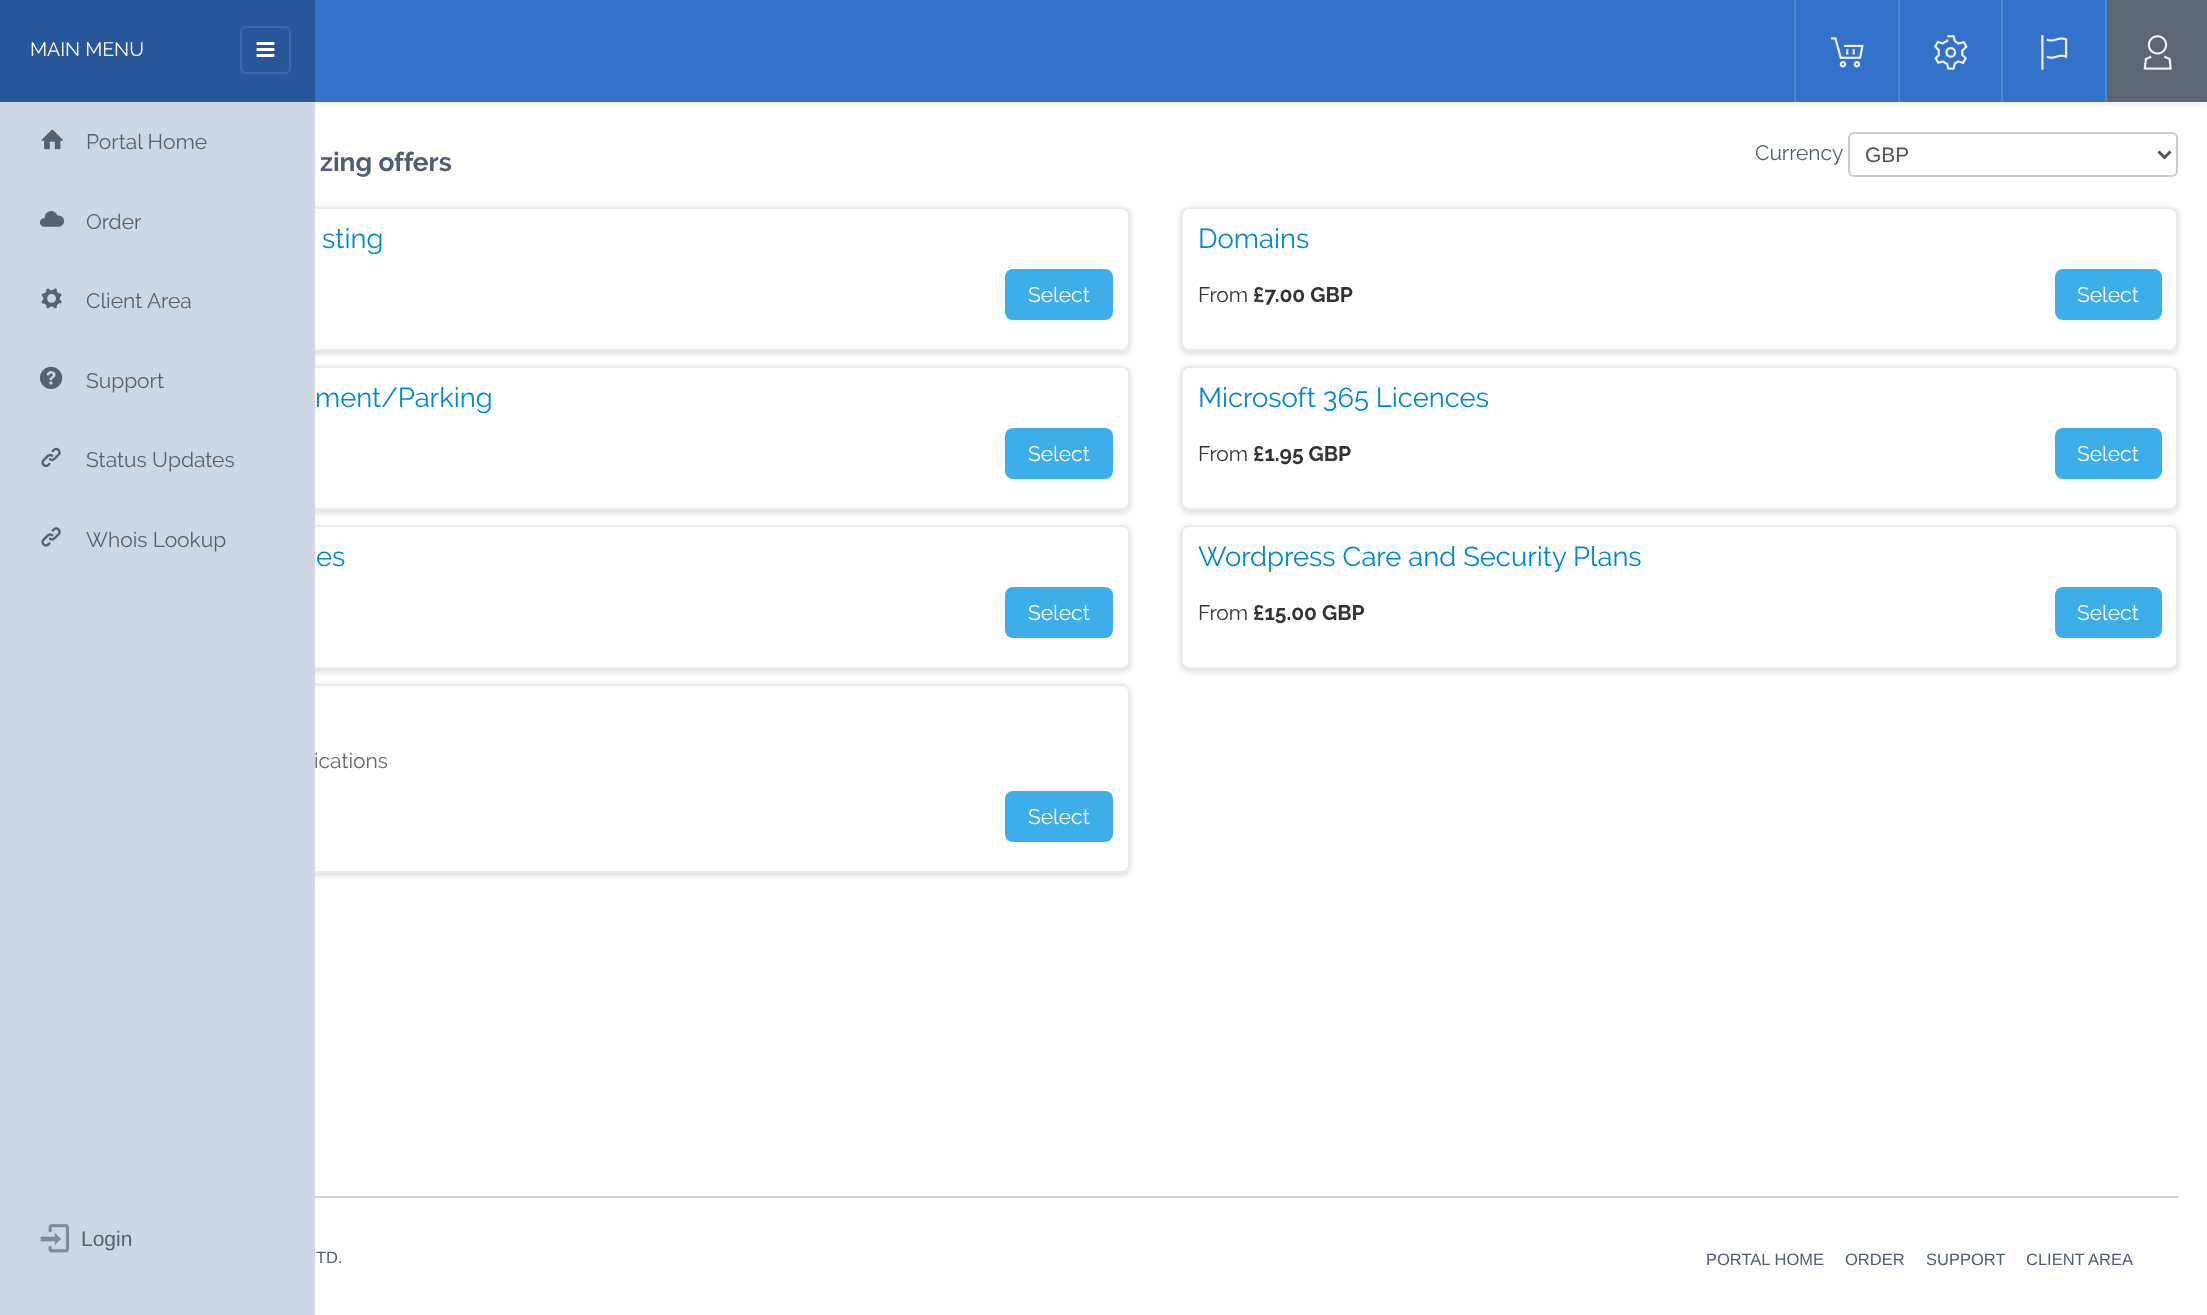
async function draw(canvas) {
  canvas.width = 2207
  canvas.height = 1315
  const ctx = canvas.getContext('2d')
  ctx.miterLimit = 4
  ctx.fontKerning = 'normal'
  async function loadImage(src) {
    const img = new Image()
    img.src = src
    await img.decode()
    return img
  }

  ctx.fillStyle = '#fff'
  ctx.fillRect(0, 0, 2207, 1315)
  ctx.fillStyle = '#00000012'
  ctx.filter = 'blur(3px)'
  ctx.beginPath()
  ctx.rect(102, 2, 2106, 102)
  ctx.fill()
  ctx.filter = 'none'
  ctx.fillStyle = '#27569a'
  ctx.fillRect(0, 0, 315, 102)
  ctx.font = '19.5px Raleway'
  ctx.fillStyle = '#fff'
  ctx.fillText('MAIN MENU', 30, 56)
  ctx.beginPath()
  ctx.roundRect(241, 27, 49, 46, 5)
  ctx.strokeStyle = '#3d67a4'
  ctx.lineWidth = 2
  ctx.stroke()
  ctx.drawImage(await loadImage('image0.png'), 256, 42, 19, 15)
  ctx.fillStyle = '#00000029'
  ctx.filter = 'blur(3px)'
  ctx.beginPath()
  ctx.roundRect(132, 209, 998, 144, 8)
  ctx.fill()
  ctx.filter = 'none'
  ctx.fillStyle = '#fff'
  ctx.beginPath()
  ctx.roundRect(133, 208, 996, 142, 7)
  ctx.fill()
  ctx.strokeStyle = '#ebecf0'
  ctx.stroke()
  ctx.fillStyle = '#00000029'
  ctx.filter = 'blur(3px)'
  ctx.beginPath()
  ctx.roundRect(132, 368, 998, 144, 8)
  ctx.fill()
  ctx.filter = 'none'
  ctx.fillStyle = '#fff'
  ctx.beginPath()
  ctx.roundRect(133, 367, 996, 142, 7)
  ctx.fill()
  ctx.stroke()
  ctx.fillStyle = '#00000029'
  ctx.filter = 'blur(3px)'
  ctx.beginPath()
  ctx.roundRect(132, 527, 998, 144, 8)
  ctx.fill()
  ctx.filter = 'none'
  ctx.fillStyle = '#fff'
  ctx.beginPath()
  ctx.roundRect(133, 526, 996, 142, 7)
  ctx.fill()
  ctx.stroke()
  ctx.fillStyle = '#00000029'
  ctx.filter = 'blur(3px)'
  ctx.beginPath()
  ctx.roundRect(132, 686, 998, 189, 8)
  ctx.fill()
  ctx.filter = 'none'
  ctx.fillStyle = '#fff'
  ctx.beginPath()
  ctx.roundRect(133, 685, 996, 187, 7)
  ctx.fill()
  ctx.stroke()
  ctx.fillStyle = '#cfd7e5'
  ctx.fillRect(0, 102, 315, 1213)
  ctx.drawImage(await loadImage('image1.png'), 41, 129, 23, 21)
  ctx.font = '21px Raleway'
  ctx.fillStyle = '#566172'
  ctx.fillText('Portal Home', 86, 149)
  ctx.drawImage(await loadImage('image2.png'), 39, 211, 25, 16)
  ctx.fillText('Order', 86, 229)
  ctx.drawImage(await loadImage('image3.png'), 41, 288, 21, 21)
  ctx.fillText('Client Area', 86, 308)
  ctx.drawImage(await loadImage('image4.png'), 40, 366, 23, 23)
  ctx.fillText('Support', 86, 388)
  ctx.drawImage(await loadImage('image5.png'), 41, 447, 20, 21)
  ctx.fillText('Status Updates', 86, 467)
  ctx.drawImage(await loadImage('image6.png'), 41, 527, 20, 20)
  ctx.fillText('Whois Lookup', 86, 547)
  ctx.fillStyle = '#3371cb'
  ctx.fillRect(315, 0, 1790, 102)
  ctx.fillStyle = '#4f84d0'
  ctx.fillRect(1794, 0, 2, 102)
  ctx.drawImage(await loadImage('image7.png'), 1831, 37, 33, 31)
  ctx.fillRect(1898, 0, 2, 102)
  ctx.drawImage(await loadImage('image8.png'), 1933, 35, 35, 35)
  ctx.fillRect(2001, 0, 2, 102)
  ctx.drawImage(await loadImage('image9.png'), 2041, 35, 27, 35)
  ctx.fillStyle = '#5e6674'
  ctx.fillRect(2107, 0, 100, 102)
  ctx.fillStyle = '#4f84d0'
  ctx.fillRect(2105, 0, 2, 102)
  ctx.drawImage(await loadImage('image10.png'), 2143, 35, 29, 35)
  ctx.font = 'bold 26.25px Raleway'
  ctx.fillStyle = '#505d72'
  ctx.fillText('zing offers', 320, 171)
  ctx.font = '21px Raleway'
  ctx.fillText('Currency', 1755, 160)
  ctx.beginPath()
  ctx.roundRect(1849, 133, 328, 43, 5)
  ctx.strokeStyle = '#ccc'
  ctx.stroke()
  ctx.beginPath()
  ctx.moveTo(2158.5, 151.5)
  ctx.lineTo(2164.5, 157.5)
  ctx.lineTo(2170.5, 151.5)
  ctx.strokeStyle = '#555'
  ctx.lineWidth = 3
  ctx.stroke()
  ctx.font = '21px Liberation Sans'
  ctx.fillStyle = '#555'
  ctx.fillText('GBP', 1865, 162)
  ctx.font = '27.4px Raleway'
  ctx.fillStyle = '#08c'
  ctx.fillText('sting', 322, 248)
  ctx.fillStyle = '#3daee9'
  ctx.beginPath()
  ctx.roundRect(1005, 269, 108, 51, 8)
  ctx.fill()
  ctx.font = '21px Raleway'
  ctx.fillStyle = '#fff'
  ctx.fillText('Select', 1028, 302)
  ctx.fillStyle = '#00000029'
  ctx.filter = 'blur(3px)'
  ctx.beginPath()
  ctx.roundRect(1181, 209, 997, 144, 8)
  ctx.fill()
  ctx.filter = 'none'
  ctx.fillStyle = '#fff'
  ctx.beginPath()
  ctx.roundRect(1182, 208, 995, 142, 7)
  ctx.fill()
  ctx.strokeStyle = '#ebecf0'
  ctx.lineWidth = 2
  ctx.stroke()
  ctx.font = '27.4px Raleway'
  ctx.fillStyle = '#08c'
  ctx.fillText('Domains', 1198, 248)
  ctx.font = '21px Raleway'
  ctx.fillStyle = '#333'
  ctx.fillText('From', 1198, 302)
  ctx.font = 'bold 21px Raleway'
  ctx.fillText('£7.00 GBP', 1253, 302)
  ctx.fillStyle = '#3daee9'
  ctx.beginPath()
  ctx.roundRect(2055, 269, 107, 51, 8)
  ctx.fill()
  ctx.font = '21px Raleway'
  ctx.fillStyle = '#fff'
  ctx.fillText('Select', 2077, 302)
  ctx.font = '27.4px Raleway'
  ctx.fillStyle = '#08c'
  ctx.fillText('ment/Parking', 315, 407)
  ctx.fillStyle = '#3daee9'
  ctx.beginPath()
  ctx.roundRect(1005, 428, 108, 51, 8)
  ctx.fill()
  ctx.font = '21px Raleway'
  ctx.fillStyle = '#fff'
  ctx.fillText('Select', 1028, 461)
  ctx.fillStyle = '#00000029'
  ctx.filter = 'blur(3px)'
  ctx.beginPath()
  ctx.roundRect(1181, 368, 997, 144, 8)
  ctx.fill()
  ctx.filter = 'none'
  ctx.fillStyle = '#fff'
  ctx.beginPath()
  ctx.roundRect(1182, 367, 995, 142, 7)
  ctx.fill()
  ctx.stroke()
  ctx.font = '27.4px Raleway'
  ctx.fillStyle = '#08c'
  ctx.fillText('Microsoft 365 Licences', 1198, 407)
  ctx.font = '21px Raleway'
  ctx.fillStyle = '#333'
  ctx.fillText('From', 1198, 461)
  ctx.font = 'bold 21px Raleway'
  ctx.fillText('£1.95 GBP', 1253, 461)
  ctx.fillStyle = '#3daee9'
  ctx.beginPath()
  ctx.roundRect(2055, 428, 107, 51, 8)
  ctx.fill()
  ctx.font = '21px Raleway'
  ctx.fillStyle = '#fff'
  ctx.fillText('Select', 2077, 461)
  ctx.font = '27.4px Raleway'
  ctx.fillStyle = '#08c'
  ctx.fillText('es', 316, 566)
  ctx.fillStyle = '#3daee9'
  ctx.beginPath()
  ctx.roundRect(1005, 587, 108, 51, 8)
  ctx.fill()
  ctx.font = '21px Raleway'
  ctx.fillStyle = '#fff'
  ctx.fillText('Select', 1028, 620)
  ctx.fillStyle = '#00000029'
  ctx.filter = 'blur(3px)'
  ctx.beginPath()
  ctx.roundRect(1181, 527, 997, 144, 8)
  ctx.fill()
  ctx.filter = 'none'
  ctx.fillStyle = '#fff'
  ctx.beginPath()
  ctx.roundRect(1182, 526, 995, 142, 7)
  ctx.fill()
  ctx.stroke()
  ctx.font = '27.4px Raleway'
  ctx.fillStyle = '#08c'
  ctx.fillText('Wordpress Care and Security Plans', 1198, 566)
  ctx.font = '21px Raleway'
  ctx.fillStyle = '#333'
  ctx.fillText('From', 1198, 620)
  ctx.font = 'bold 21px Raleway'
  ctx.fillText('£15.00 GBP', 1253, 620)
  ctx.fillStyle = '#3daee9'
  ctx.beginPath()
  ctx.roundRect(2055, 587, 107, 51, 8)
  ctx.fill()
  ctx.font = '21px Raleway'
  ctx.fillStyle = '#fff'
  ctx.fillText('Select', 2077, 620)
  ctx.fillStyle = '#666'
  ctx.fillText('ications', 314, 768)
  ctx.fillStyle = '#3daee9'
  ctx.beginPath()
  ctx.roundRect(1005, 791, 108, 51, 8)
  ctx.fill()
  ctx.fillStyle = '#fff'
  ctx.fillText('Select', 1028, 824)
  ctx.drawImage(await loadImage('image11.png'), 40, 1224, 29, 29)
  ctx.font = '21px Liberation Sans'
  ctx.fillStyle = '#566172'
  ctx.fillText('Login', 81, 1246)
  ctx.fillStyle = '#cbd4da'
  ctx.fillRect(315, 1196, 1863, 2)
  ctx.font = '16.5px Liberation Sans'
  ctx.fillStyle = '#505d72'
  ctx.fillText('TD.', 316, 1263)
  ctx.fillText('PORTAL HOME', 1706, 1265)
  ctx.fillText('ORDER', 1845, 1265)
  ctx.fillText('SUPPORT', 1926, 1265)
  ctx.fillText('CLIENT AREA', 2026, 1265)
}

draw(document.querySelector('canvas'))
